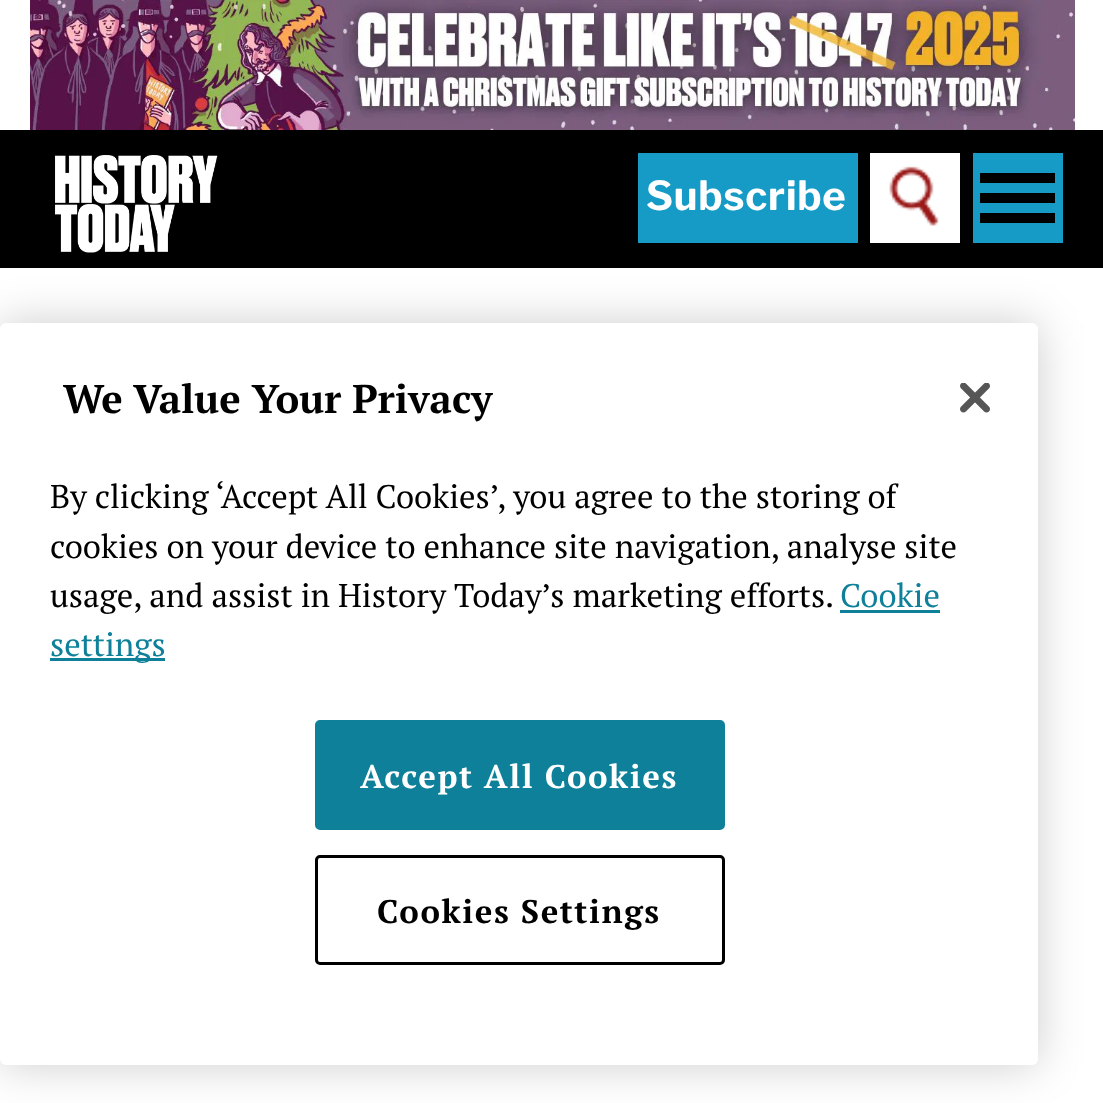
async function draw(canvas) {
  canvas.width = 1103
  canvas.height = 1103
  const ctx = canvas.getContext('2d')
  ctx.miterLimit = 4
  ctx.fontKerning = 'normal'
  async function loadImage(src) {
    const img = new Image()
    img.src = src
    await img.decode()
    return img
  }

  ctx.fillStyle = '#fff'
  ctx.fillRect(0, 0, 1103, 1103)
  ctx.drawImage(await loadImage('image0.png'), 30, 0, 1045, 130)
  ctx.fillStyle = '#000'
  ctx.fillRect(0, 130, 1103, 138)
  ctx.drawImage(await loadImage('image1.png'), 55, 155, 163, 98)
  ctx.fillStyle = '#169bc7'
  ctx.fillRect(638, 153, 220, 90)
  ctx.letterSpacing = '0.75px'
  ctx.font = 'bold 40px Libre Franklin'
  ctx.fillStyle = '#fff'
  ctx.fillText('Subscribe', 646, 210)
  ctx.fillRect(870, 153, 90, 90)
  ctx.drawImage(await loadImage('image2.png'), 889, 166, 50, 60)
  ctx.fillStyle = '#169bc7'
  ctx.fillRect(973, 153, 90, 90)
  ctx.fillStyle = '#000'
  ctx.fillRect(980, 173, 75, 10)
  ctx.fillRect(980, 193, 75, 10)
  ctx.fillRect(980, 213, 75, 10)
  ctx.fillStyle = '#00000033'
  ctx.filter = 'blur(22.5px)'
  ctx.beginPath()
  ctx.roundRect(0, 323, 1038, 742, 6)
  ctx.fill()
  ctx.filter = 'none'
  ctx.fillStyle = '#fff'
  ctx.beginPath()
  ctx.roundRect(0, 323, 1038, 742, 6)
  ctx.fill()
  ctx.letterSpacing = '0px'
  ctx.font = 'bold 40px PT Serif'
  ctx.fillStyle = '#000'
  ctx.fillText('We Value Your Privacy', 63, 413)
  ctx.font = '32.8px PT Serif'
  ctx.fillText('By clicking ‘Accept All Cookies’, you agree to the storing of', 50, 508)
  ctx.fillText('cookies on your device to enhance site navigation, analyse site', 50, 558)
  ctx.fillText('usage, and assist in History Today’s marketing efforts.', 50, 607)
  ctx.fillStyle = '#0e809a'
  ctx.fillText('Cookie', 840, 607)
  ctx.fillRect(840, 610, 100, 3)
  ctx.fillRect(50, 658, 115, 3)
  ctx.fillText('settings', 50, 656)
  ctx.drawImage(await loadImage('image3.png'), 960, 383, 30, 30)
  ctx.beginPath()
  ctx.roundRect(316.5, 721.5, 407, 107, 3.5)
  ctx.fill()
  ctx.strokeStyle = '#0e809a'
  ctx.lineWidth = 3
  ctx.stroke()
  ctx.letterSpacing = '1.6px'
  ctx.font = 'bold 32.8px PT Serif'
  ctx.fillStyle = '#fff'
  ctx.fillText('Accept All Cookies', 360, 788)
  ctx.beginPath()
  ctx.roundRect(316.5, 856.5, 407, 107, 3.5)
  ctx.strokeStyle = '#000'
  ctx.stroke()
  ctx.fillStyle = '#000'
  ctx.fillText('Cookies Settings', 377, 923)
}

draw(document.querySelector('canvas'))
